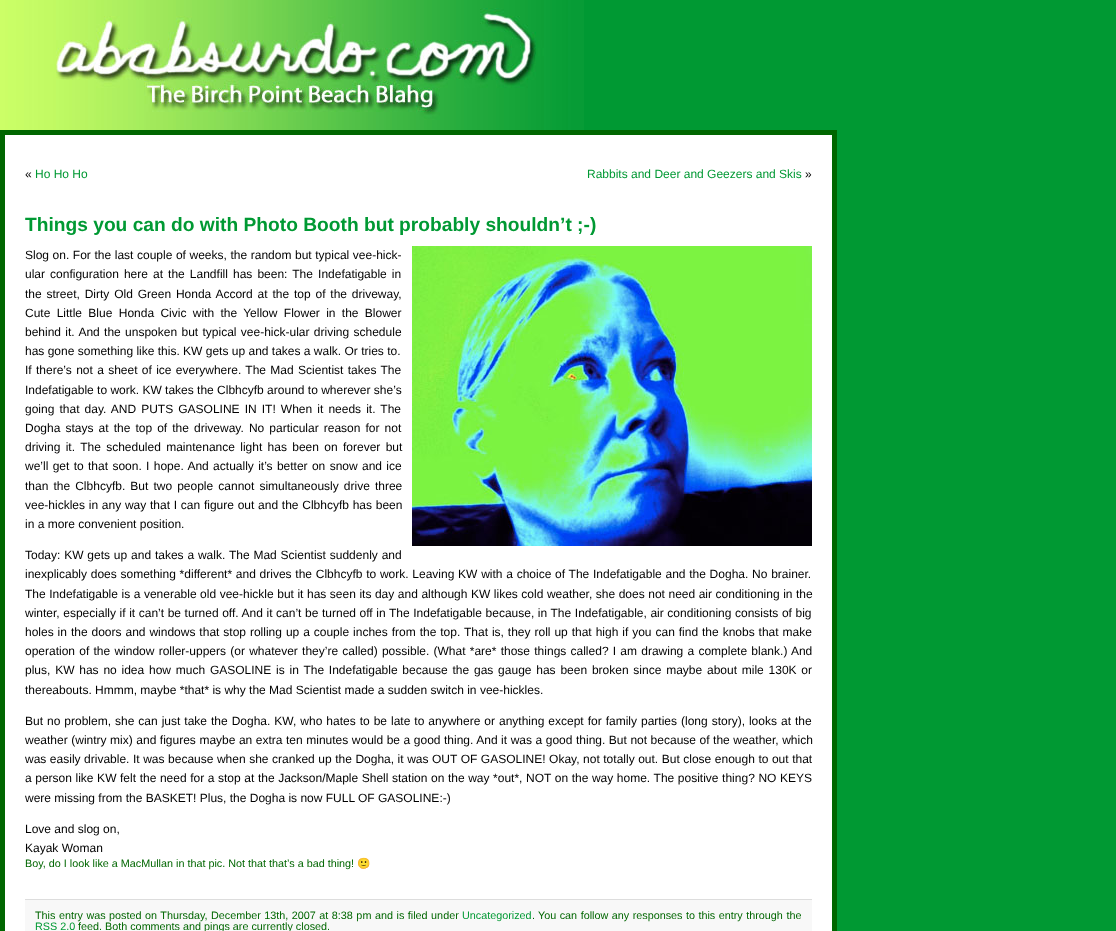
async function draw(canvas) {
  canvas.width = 1116
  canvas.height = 931
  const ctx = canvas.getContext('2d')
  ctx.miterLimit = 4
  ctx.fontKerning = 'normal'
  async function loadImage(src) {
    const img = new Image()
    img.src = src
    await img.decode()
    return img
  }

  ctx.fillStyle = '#093'
  ctx.fillRect(0, 0, 1116, 931)
  ctx.drawImage(await loadImage('image0.png'), 0, 0, 584, 130)
  ctx.fillStyle = '#fff'
  ctx.beginPath()
  ctx.rect(2.5, 132.5, 832, 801)
  ctx.fill()
  ctx.strokeStyle = '#060'
  ctx.lineWidth = 5
  ctx.stroke()
  ctx.font = '12px Liberation Sans'
  ctx.fillStyle = '#000'
  ctx.fillText('«', 25, 178)
  ctx.fillStyle = '#093'
  ctx.fillText('Ho Ho Ho', 35, 178)
  ctx.fillText('Rabbits and Deer and Geezers and Skis', 587, 178)
  ctx.fillStyle = '#000'
  ctx.fillText('»', 805, 178)
  ctx.font = 'bold 19.2px Liberation Sans'
  ctx.fillStyle = '#093'
  ctx.fillText('Things you can do with Photo Booth but probably shouldn’t ;-)', 25, 231)
  ctx.wordSpacing = '0.25px'
  ctx.font = '12px Liberation Sans'
  ctx.fillStyle = '#000'
  ctx.fillText('Slog on. For the last couple of weeks, the random but typical vee-hick-', 25, 259)
  ctx.drawImage(await loadImage('image1.png'), 412, 246, 400, 300)
  ctx.wordSpacing = '1.75px'
  ctx.fillText('ular configuration here at the Landfill has been: The Indefatigable in', 25, 278)
  ctx.wordSpacing = '1.5px'
  ctx.fillText('the street, Dirty Old Green Honda Accord at the top of the driveway,', 25, 298)
  ctx.wordSpacing = '3px'
  ctx.fillText('Cute Little Blue Honda Civic with the Yellow Flower in the Blower', 25, 317)
  ctx.wordSpacing = '1px'
  ctx.fillText('behind it. And the unspoken but typical vee-hick-ular driving schedule', 25, 336)
  ctx.wordSpacing = '0px'
  ctx.fillText('has gone something like this. KW gets up and takes a walk. Or tries to.', 25, 355)
  ctx.wordSpacing = '1px'
  ctx.fillText('If there’s not a sheet of ice everywhere. The Mad Scientist takes The', 25, 374)
  ctx.wordSpacing = '0px'
  ctx.fillText('Indefatigable to work. KW takes the Clbhcyfb around to wherever she’s', 25, 394)
  ctx.wordSpacing = '1.75px'
  ctx.fillText('going that day. AND PUTS GASOLINE IN IT! When it needs it. The', 25, 413)
  ctx.fillText('Dogha stays at the top of the driveway. No particular reason for not', 25, 432)
  ctx.wordSpacing = '2px'
  ctx.fillText('driving it. The scheduled maintenance light has been on forever but', 25, 451)
  ctx.wordSpacing = '1px'
  ctx.fillText('we’ll get to that soon. I hope. And actually it’s better on snow and ice', 25, 470)
  ctx.wordSpacing = '1.75px'
  ctx.fillText('than the Clbhcyfb. But two people cannot simultaneously drive three', 25, 490)
  ctx.wordSpacing = '0.4px'
  ctx.fillText('vee-hickles in any way that I can figure out and the Clbhcyfb has been', 25, 509)
  ctx.wordSpacing = '0px'
  ctx.fillText('in a more convenient position.', 25, 528)
  ctx.wordSpacing = '0.5px'
  ctx.fillText('Today: KW gets up and takes a walk. The Mad Scientist suddenly and', 25, 559)
  ctx.wordSpacing = '0.4px'
  ctx.fillText('inexplicably does something *different* and drives the Clbhcyfb to work. Leaving KW with a choice of The Indefatigable and the Dogha. No brainer.', 25, 578)
  ctx.wordSpacing = '0.2px'
  ctx.fillText('The Indefatigable is a venerable old vee-hickle but it has seen its day and although KW likes cold weather, she does not need air conditioning in the', 25, 598)
  ctx.wordSpacing = '0.25px'
  ctx.fillText('winter, especially if it can’t be turned off. And it can’t be turned off in The Indefatigable because, in The Indefatigable, air conditioning consists of big', 25, 617)
  ctx.wordSpacing = '0.6px'
  ctx.fillText('holes in the doors and windows that stop rolling up a couple inches from the top. That is, they roll up that high if you can find the knobs that make', 25, 636)
  ctx.wordSpacing = '0.9px'
  ctx.fillText('operation of the window roller-uppers (or whatever they’re called) possible. (What *are* those things called? I am drawing a complete blank.) And', 25, 655)
  ctx.wordSpacing = '1.45px'
  ctx.fillText('plus, KW has no idea how much GASOLINE is in The Indefatigable because the gas gauge has been broken since maybe about mile 130K or', 25, 674)
  ctx.wordSpacing = '0px'
  ctx.fillText('thereabouts. Hmmm, maybe *that* is why the Mad Scientist made a sudden switch in vee-hickles.', 25, 694)
  ctx.wordSpacing = '0.65px'
  ctx.fillText('But no problem, she can just take the Dogha. KW, who hates to be late to anywhere or anything except for family parties (long story), looks at the', 25, 725)
  ctx.wordSpacing = '0.2px'
  ctx.fillText('weather (wintry mix) and figures maybe an extra ten minutes would be a good thing. And it was a good thing. But not because of the weather, which', 25, 744)
  ctx.fillText('was easily drivable. It was because when she cranked up the Dogha, it was OUT OF GASOLINE! Okay, not totally out. But close enough to out that', 25, 763)
  ctx.wordSpacing = '0.25px'
  ctx.fillText('a person like KW felt the need for a stop at the Jackson/Maple Shell station on the way *out*, NOT on the way home. The positive thing? NO KEYS', 25, 782)
  ctx.wordSpacing = '0px'
  ctx.fillText('were missing from the BASKET! Plus, the Dogha is now FULL OF GASOLINE:-)', 25, 802)
  ctx.fillText('Love and slog on,', 25, 833)
  ctx.fillText('Kayak Woman', 25, 852)
  ctx.font = '10.8px Liberation Sans'
  ctx.fillStyle = '#060'
  ctx.fillText('Boy, do I look like a MacMullan in that pic. Not that that’s a bad thing!', 25, 867)
  ctx.font = '10.8px Noto Color Emoji'
  ctx.fillText('🙂', 357, 867)
  ctx.fillStyle = '#f8f8f8'
  ctx.fillRect(25, 900, 787, 31)
  ctx.fillStyle = '#ddd'
  ctx.fillRect(25, 899, 787, 1)
  ctx.wordSpacing = '0.5px'
  ctx.font = '10.8px Liberation Sans'
  ctx.fillStyle = '#060'
  ctx.fillText('This entry was posted', 35, 919)
  ctx.fillText('on Thursday, December 13th, 2007 at 8:38 pm', 145, 919)
  ctx.fillText('and is filed under', 375, 919)
  ctx.wordSpacing = '0px'
  ctx.fillStyle = '#093'
  ctx.fillText('Uncategorized', 462, 919)
  ctx.fillStyle = '#060'
  ctx.fillText('.', 532, 919)
  ctx.wordSpacing = '0.5px'
  ctx.fillText('You can follow any responses to this entry through the', 538, 919)
  ctx.wordSpacing = '0px'
  ctx.fillStyle = '#093'
  ctx.fillText('RSS 2.0', 35, 930)
  ctx.fillStyle = '#060'
  ctx.fillText('feed. Both comments and pings are currently closed.', 78, 930)
}

draw(document.querySelector('canvas'))
